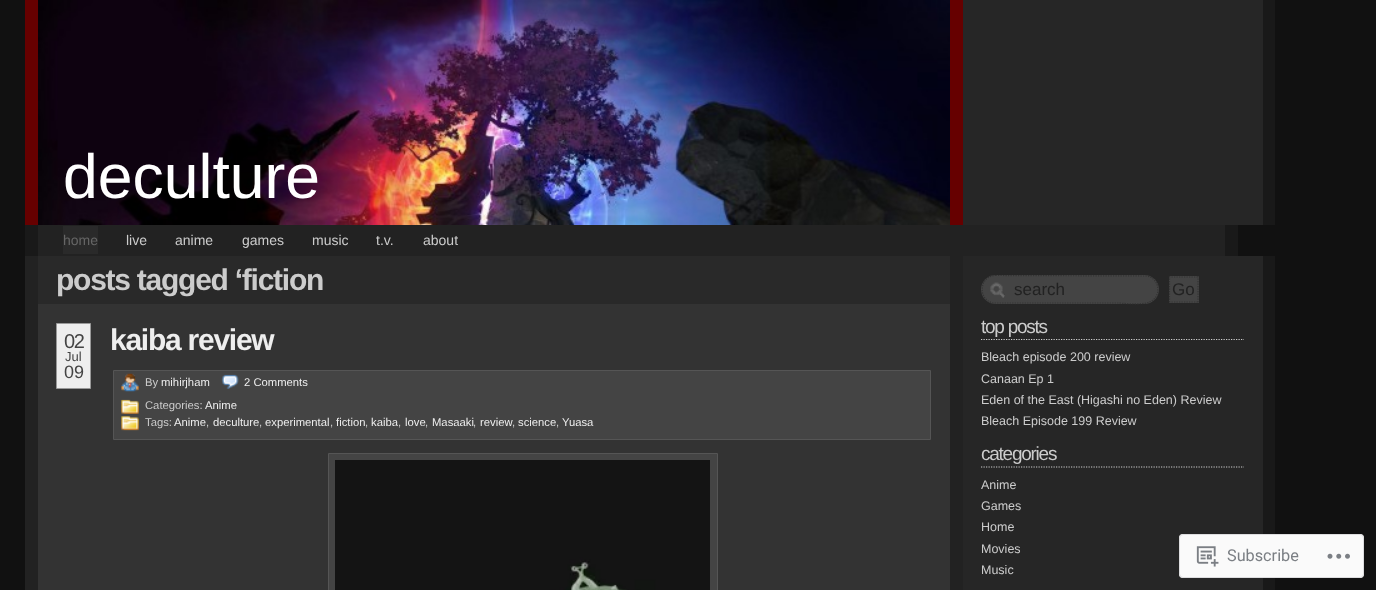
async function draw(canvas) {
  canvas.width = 1376
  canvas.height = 590
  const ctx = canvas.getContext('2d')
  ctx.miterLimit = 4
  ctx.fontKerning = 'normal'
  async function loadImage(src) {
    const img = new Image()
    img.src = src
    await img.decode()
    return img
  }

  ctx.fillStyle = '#111'
  ctx.fillRect(0, 0, 1376, 590)
  ctx.drawImage(await loadImage('image0.png'), 38, 0, 912, 225)
  ctx.fillStyle = '#600'
  ctx.fillRect(950, 0, 13, 225)
  ctx.fillRect(25, 0, 13, 225)
  ctx.font = '62.5px Liberation Sans'
  ctx.fillStyle = '#fff'
  ctx.fillText('deculture', 63, 198)
  ctx.fillStyle = '#262626'
  ctx.fillRect(963, 0, 300, 225)
  ctx.fillStyle = '#191919'
  ctx.fillRect(1263, 0, 12, 225)
  ctx.fillStyle = '#222'
  ctx.fillRect(38, 225, 1187, 31)
  ctx.fillStyle = '#191919'
  ctx.fillRect(1225, 225, 13, 31)
  ctx.fillRect(25, 225, 13, 31)
  ctx.fillStyle = '#2a2a2a'
  ctx.fillRect(63, 226, 35, 28)
  ctx.font = '14px Liberation Sans'
  ctx.fillStyle = '#666'
  ctx.fillText('home', 63, 245)
  ctx.fillStyle = '#ccc'
  ctx.fillText('live', 126, 245)
  ctx.fillText('anime', 175, 245)
  ctx.fillText('games', 242, 245)
  ctx.fillText('music', 312, 245)
  ctx.fillText('t.v.', 376, 245)
  ctx.fillText('about', 423, 245)
  ctx.fillStyle = '#333'
  ctx.fillRect(38, 304, 912, 286)
  ctx.fillStyle = '#222'
  ctx.fillRect(950, 256, 13, 334)
  ctx.fillRect(25, 256, 13, 334)
  ctx.fillStyle = '#292929'
  ctx.fillRect(38, 256, 912, 48)
  ctx.letterSpacing = '-1.25px'
  ctx.font = 'bold 30px Liberation Sans'
  ctx.fillStyle = '#ccc'
  ctx.fillText('posts tagged ‘fiction', 56, 290)
  ctx.fillStyle = '#eee'
  ctx.beginPath()
  ctx.rect(56.5, 323.5, 34, 65)
  ctx.fill()
  ctx.strokeStyle = '#999'
  ctx.stroke()
  ctx.font = '20px Liberation Sans'
  ctx.fillStyle = '#444'
  ctx.fillText('02', 64, 348)
  ctx.letterSpacing = '0px'
  ctx.font = '13px Liberation Sans'
  ctx.fillText('Jul', 65, 361)
  ctx.font = '18px Liberation Sans'
  ctx.fillText('09', 64, 378)
  ctx.letterSpacing = '-1.25px'
  ctx.font = 'bold 30px Liberation Sans'
  ctx.fillStyle = '#eee'
  ctx.fillText('kaiba review', 110, 350)
  ctx.fillStyle = '#444'
  ctx.beginPath()
  ctx.rect(113.5, 370.5, 817, 69)
  ctx.fill()
  ctx.strokeStyle = '#555'
  ctx.stroke()
  ctx.drawImage(await loadImage('image1.png'), 121, 373, 18, 19)
  ctx.letterSpacing = '0px'
  ctx.font = '11.25px Liberation Sans'
  ctx.fillStyle = '#ccc'
  ctx.fillText('By', 145, 386)
  ctx.fillStyle = '#eee'
  ctx.fillText('mihirjham', 161, 386)
  ctx.drawImage(await loadImage('image2.png'), 221, 374, 18, 15)
  ctx.fillText('2 Comments', 244, 386)
  ctx.drawImage(await loadImage('image3.png'), 121, 399, 18, 15)
  ctx.fillStyle = '#ccc'
  ctx.fillText('Categories:', 145, 409)
  ctx.fillStyle = '#eee'
  ctx.fillText('Anime', 205, 409)
  ctx.drawImage(await loadImage('image4.png'), 121, 416, 18, 15)
  ctx.fillStyle = '#ccc'
  ctx.fillText('Tags:', 145, 426)
  ctx.fillStyle = '#eee'
  ctx.fillText('Anime', 174, 426)
  ctx.fillStyle = '#ccc'
  ctx.fillText(',', 206, 426)
  ctx.fillStyle = '#eee'
  ctx.fillText('deculture', 213, 426)
  ctx.fillStyle = '#ccc'
  ctx.fillText(',', 259, 426)
  ctx.fillStyle = '#eee'
  ctx.fillText('experimental', 265, 426)
  ctx.fillStyle = '#ccc'
  ctx.fillText(',', 330, 426)
  ctx.fillStyle = '#eee'
  ctx.fillText('fiction', 336, 426)
  ctx.fillStyle = '#ccc'
  ctx.fillText(',', 365, 426)
  ctx.fillStyle = '#eee'
  ctx.fillText('kaiba', 371, 426)
  ctx.fillStyle = '#ccc'
  ctx.fillText(',', 398, 426)
  ctx.fillStyle = '#eee'
  ctx.fillText('love', 405, 426)
  ctx.fillStyle = '#ccc'
  ctx.fillText(',', 425, 426)
  ctx.fillStyle = '#eee'
  ctx.fillText('Masaaki', 432, 426)
  ctx.fillStyle = '#ccc'
  ctx.fillText(',', 473, 426)
  ctx.fillStyle = '#eee'
  ctx.fillText('review', 480, 426)
  ctx.fillText('science', 518, 426)
  ctx.fillText('Yuasa', 562, 426)
  ctx.fillStyle = '#ccc'
  ctx.fillText(',', 512, 426)
  ctx.fillText(',', 556, 426)
  ctx.fillStyle = '#444'
  ctx.beginPath()
  ctx.rect(328.5, 453.5, 389, 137)
  ctx.fill()
  ctx.stroke()
  ctx.drawImage(await loadImage('image5.png'), 335, 460, 375, 130)
  ctx.fillStyle = '#262626'
  ctx.fillRect(963, 256, 300, 334)
  ctx.fillStyle = '#191919'
  ctx.fillRect(1263, 256, 12, 334)
  ctx.fillStyle = '#444'
  ctx.beginPath()
  ctx.roundRect(981, 275, 178, 29, 14.5)
  ctx.fill()
  ctx.drawImage(await loadImage('image6.png'), 990, 282, 15, 16)
  ctx.beginPath()
  ctx.moveTo(995.5, 275.5)
  ctx.lineTo(1147, 276)
  ctx.bezierCurveTo(1160, 278.5, 1162, 297, 1149.5, 302)
  ctx.bezierCurveTo(1142, 305.5, 1119.5, 303, 1119.5, 303)
  ctx.lineTo(993, 303)
  ctx.bezierCurveTo(977, 299.5, 979.5, 275.5, 995.5, 275.5)
  ctx.closePath()
  ctx.strokeStyle = '#333'
  ctx.lineWidth = 1.2
  ctx.setLineDash([1.25, 1.25])
  ctx.stroke()
  ctx.font = '17px Liberation Sans'
  ctx.fillStyle = '#222'
  ctx.fillText('search', 1014, 295)
  ctx.fillStyle = '#444'
  ctx.fillRect(1169, 276, 30, 27)
  ctx.beginPath()
  ctx.moveTo(1169, 277)
  ctx.lineTo(1199, 277)
  ctx.moveTo(1198, 276)
  ctx.lineTo(1198, 302.5)
  ctx.moveTo(1169, 302)
  ctx.lineTo(1199, 302)
  ctx.moveTo(1169.5, 276)
  ctx.lineTo(1169.5, 302.5)
  ctx.stroke()
  ctx.fillStyle = '#222'
  ctx.fillText('Go', 1172, 295)
  ctx.beginPath()
  ctx.moveTo(981, 339.5)
  ctx.lineTo(1244, 339.5)
  ctx.strokeStyle = '#ccc'
  ctx.stroke()
  ctx.letterSpacing = '-1.25px'
  ctx.font = '19px Liberation Sans'
  ctx.fillStyle = '#ccc'
  ctx.fillText('top posts', 981, 333)
  ctx.letterSpacing = '0px'
  ctx.font = '12.5px Liberation Sans'
  ctx.fillText('Bleach episode 200 review', 981, 361)
  ctx.fillText('Canaan Ep 1', 981, 383)
  ctx.fillText('Eden of the East (Higashi no Eden) Review', 981, 404)
  ctx.fillText('Bleach Episode 199 Review', 981, 425)
  ctx.beginPath()
  ctx.moveTo(981, 467)
  ctx.lineTo(1244, 467)
  ctx.stroke()
  ctx.letterSpacing = '-1.25px'
  ctx.font = '19px Liberation Sans'
  ctx.fillText('categories', 981, 460)
  ctx.letterSpacing = '0px'
  ctx.font = '12.5px Liberation Sans'
  ctx.fillText('Anime', 981, 489)
  ctx.fillText('Games', 981, 510)
  ctx.fillText('Home', 981, 531)
  ctx.fillText('Movies', 981, 553)
  ctx.fillText('Music', 981, 574)
  ctx.fillStyle = '#fffffffa'
  ctx.beginPath()
  ctx.roundRect(1179, 534, 185, 44, 4)
  ctx.fill()
  ctx.beginPath()
  ctx.roundRect(1179.5, 534.5, 184, 43, 3.5)
  ctx.strokeStyle = '#dcdcdefa'
  ctx.lineWidth = 1
  ctx.setLineDash([])
  ctx.stroke()
  ctx.drawImage(await loadImage('image7.png'), 1196, 546, 23, 21)
  ctx.font = '16.25px Roboto'
  ctx.fillStyle = '#7b7f84'
  ctx.fillText('Subscribe', 1227, 561)
  ctx.drawImage(await loadImage('image8.png'), 1327, 553, 23, 6)
}

draw(document.querySelector('canvas'))
